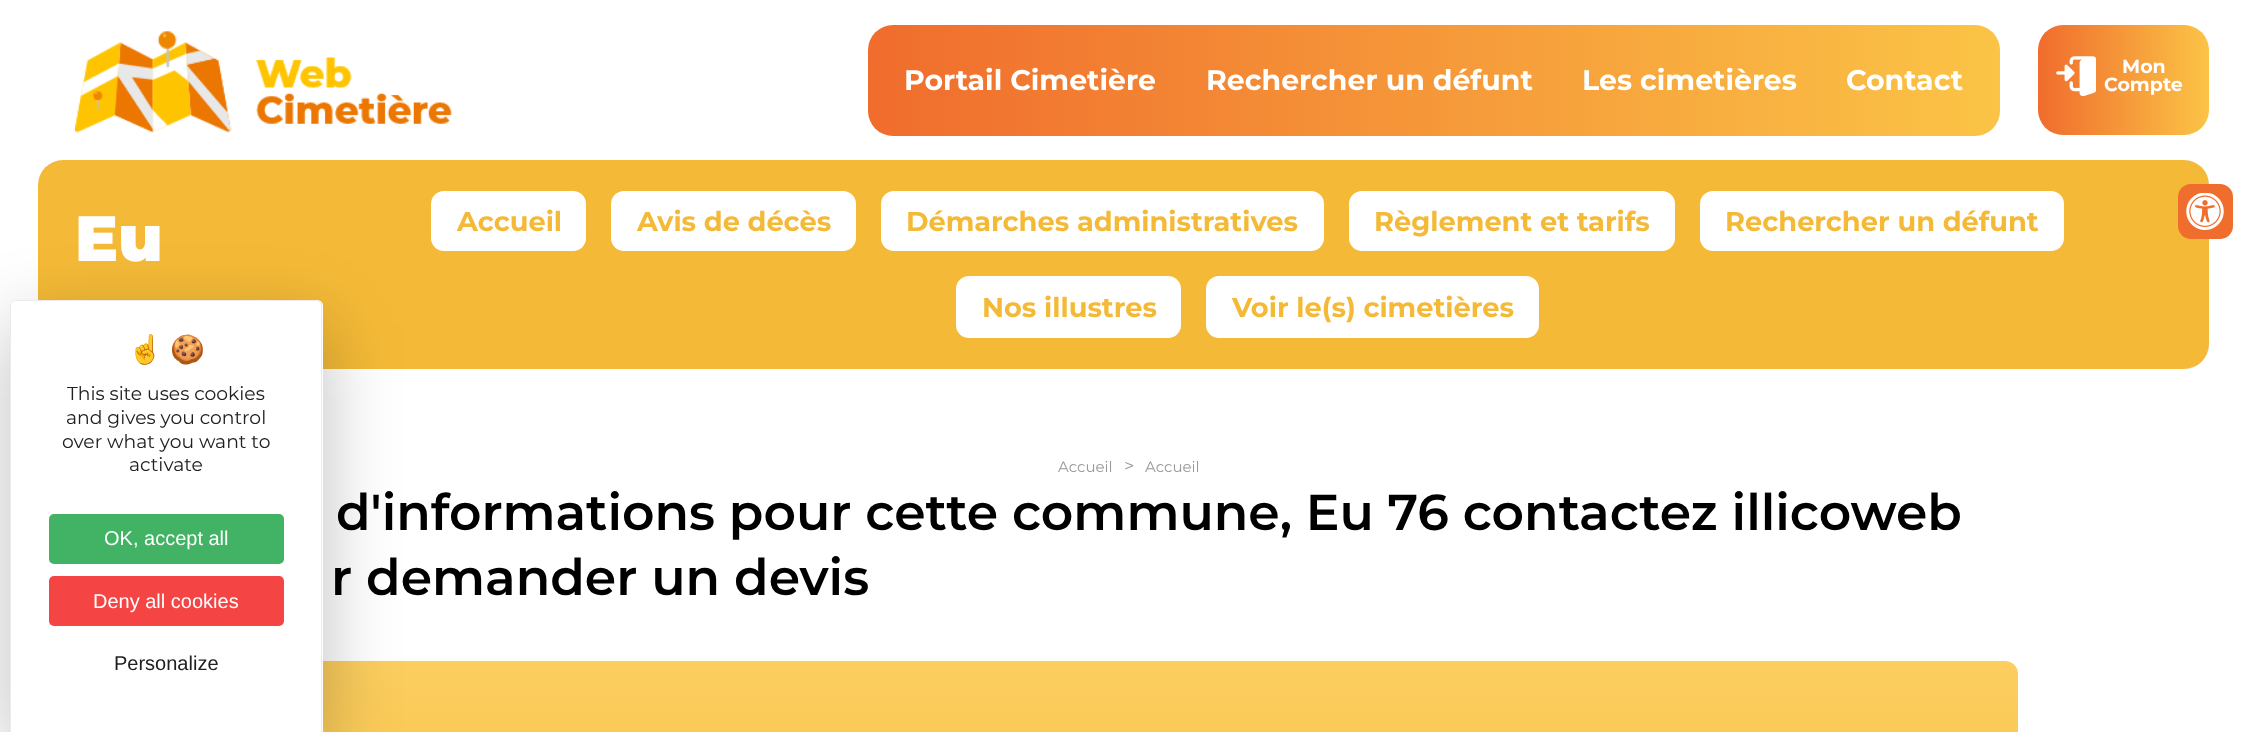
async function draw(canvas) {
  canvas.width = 2246
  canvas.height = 732
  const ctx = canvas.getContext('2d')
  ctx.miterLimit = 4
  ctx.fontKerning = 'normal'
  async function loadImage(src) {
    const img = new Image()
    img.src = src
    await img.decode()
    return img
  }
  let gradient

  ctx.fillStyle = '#fff'
  ctx.fillRect(0, 0, 2246, 732)
  ctx.drawImage(await loadImage('image0.png'), 75, 31, 377, 102)
  gradient = ctx.createLinearGradient(868, 81, 2000, 81)
  gradient.addColorStop(0.01, '#f06d2d')
  gradient.addColorStop(1, '#fbc446')
  ctx.fillStyle = gradient
  ctx.beginPath()
  ctx.roundRect(868, 25, 1132, 111, 25)
  ctx.fill()
  ctx.font = 'bold 28.4px Montserrat'
  ctx.fillStyle = '#fff'
  ctx.fillText('Portail Cimetière', 904, 90)
  ctx.fillText('Rechercher un défunt', 1206, 90)
  ctx.fillText('Les cimetières', 1582, 90)
  ctx.fillText('Contact', 1846, 90)
  gradient = ctx.createLinearGradient(2038, 80, 2209, 80)
  gradient.addColorStop(0.01, '#f06d2d')
  gradient.addColorStop(1, '#fbc446')
  ctx.fillStyle = gradient
  ctx.beginPath()
  ctx.roundRect(2038, 25, 171, 110, 25)
  ctx.fill()
  ctx.drawImage(await loadImage('image1.png'), 2056, 56, 40, 40)
  ctx.font = 'bold 19px Montserrat'
  ctx.fillStyle = '#fff'
  ctx.fillText('Mon', 2122, 73)
  ctx.fillText('Compte', 2104, 91)
  ctx.fillStyle = '#f4ba37'
  ctx.beginPath()
  ctx.roundRect(38, 160, 2171, 209, 25)
  ctx.fill()
  ctx.font = '900 64px Montserrat'
  ctx.fillStyle = '#fff'
  ctx.fillText('Eu', 75, 261)
  ctx.beginPath()
  ctx.roundRect(431, 191, 155, 60, 13)
  ctx.fill()
  ctx.font = 'bold 27.25px Montserrat'
  ctx.fillStyle = '#f4ba37'
  ctx.fillText('Accueil', 457, 231)
  ctx.fillStyle = '#fff'
  ctx.beginPath()
  ctx.roundRect(611, 191, 245, 60, 13)
  ctx.fill()
  ctx.fillStyle = '#f4ba37'
  ctx.fillText('Avis de décès', 637, 231)
  ctx.fillStyle = '#fff'
  ctx.beginPath()
  ctx.roundRect(881, 191, 443, 60, 13)
  ctx.fill()
  ctx.fillStyle = '#f4ba37'
  ctx.fillText('Démarches administratives', 906, 231)
  ctx.fillStyle = '#fff'
  ctx.beginPath()
  ctx.roundRect(1349, 191, 326, 60, 13)
  ctx.fill()
  ctx.fillStyle = '#f4ba37'
  ctx.fillText('Règlement et tarifs', 1374, 231)
  ctx.fillStyle = '#fff'
  ctx.beginPath()
  ctx.roundRect(1700, 191, 364, 60, 13)
  ctx.fill()
  ctx.fillStyle = '#f4ba37'
  ctx.fillText('Rechercher un défunt', 1725, 231)
  ctx.fillStyle = '#fff'
  ctx.beginPath()
  ctx.roundRect(956, 276, 225, 62, 13)
  ctx.fill()
  ctx.fillStyle = '#f4ba37'
  ctx.fillText('Nos illustres', 982, 317)
  ctx.fillStyle = '#fff'
  ctx.beginPath()
  ctx.roundRect(1206, 276, 333, 62, 13)
  ctx.fill()
  ctx.fillStyle = '#f4ba37'
  ctx.fillText('Voir le(s) cimetières', 1232, 317)
  ctx.font = '15px Montserrat'
  ctx.fillStyle = '#999'
  ctx.fillText('Accueil', 1058, 472)
  ctx.font = '18px Montserrat'
  ctx.fillText('>', 1124, 472)
  ctx.font = '15px Montserrat'
  ctx.fillText('Accueil', 1145, 472)
  ctx.font = '600 50.4px Montserrat'
  ctx.fillStyle = '#000'
  ctx.fillText('d\'informations pour cette commune, Eu 76 contactez illicoweb', 336, 530)
  ctx.fillText('r demander un devis', 331, 595)
  gradient = ctx.createLinearGradient(1124, 661, 1124, 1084)
  gradient.addColorStop(0, '#fcce5f')
  gradient.addColorStop(1, '#f4ba37')
  ctx.fillStyle = gradient
  ctx.beginPath()
  ctx.roundRect(230, 661, 1788, 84, 13)
  ctx.fill()
  ctx.fillStyle = '#f06e2d'
  ctx.beginPath()
  ctx.roundRect(2178, 184, 55, 55, 13)
  ctx.fill()
  ctx.drawImage(await loadImage('image2.png'), 2186, 193, 38, 37)
  ctx.fillStyle = '#00000040'
  ctx.filter = 'blur(37.5px)'
  ctx.beginPath()
  ctx.roundRect(10, 325, 313, 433, 6)
  ctx.fill()
  ctx.filter = 'none'
  ctx.fillStyle = '#fff'
  ctx.beginPath()
  ctx.moveTo(16, 300)
  ctx.lineTo(317, 300)
  ctx.bezierCurveTo(320.5, 300, 323, 302.5, 323, 306)
  ctx.lineTo(323, 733)
  ctx.lineTo(10, 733)
  ctx.lineTo(10, 306)
  ctx.bezierCurveTo(10, 302.5, 12.5, 300, 16, 300)
  ctx.closePath()
  ctx.fill()
  ctx.fillStyle = '#00000014'
  ctx.beginPath()
  ctx.moveTo(16, 300)
  ctx.lineTo(316, 300)
  ctx.bezierCurveTo(320, 300, 322, 303, 322, 306)
  ctx.lineTo(322, 732)
  ctx.lineTo(10, 732)
  ctx.lineTo(10, 306)
  ctx.bezierCurveTo(10, 303, 13, 300, 16, 300)
  ctx.closePath()
  ctx.moveTo(16, 301)
  ctx.lineTo(316, 301)
  ctx.bezierCurveTo(319, 301, 321, 303, 321, 306)
  ctx.lineTo(321, 732)
  ctx.lineTo(11, 732)
  ctx.lineTo(11, 306)
  ctx.bezierCurveTo(11, 303, 13, 301, 16, 301)
  ctx.closePath()
  ctx.fill('evenodd')
  ctx.font = '28px Noto Color Emoji'
  ctx.fillStyle = '#202020'
  ctx.fillText('☝️', 128, 359)
  ctx.fillText('🍪', 170, 359)
  ctx.font = '18.75px Montserrat'
  ctx.fillText('This site uses cookies', 67, 400)
  ctx.fillText('and gives you control', 66, 424)
  ctx.fillText('over what you want to', 62, 448)
  ctx.fillText('activate', 129, 471)
  ctx.fillStyle = '#42b364'
  ctx.beginPath()
  ctx.roundRect(49, 514, 235, 50, 5)
  ctx.fill()
  ctx.font = '20px Liberation Sans'
  ctx.fillStyle = '#fff'
  ctx.fillText('OK, accept all', 104, 545)
  ctx.fillStyle = '#f54444'
  ctx.beginPath()
  ctx.roundRect(49, 576, 235, 50, 5)
  ctx.fill()
  ctx.fillStyle = '#fff'
  ctx.fillText('Deny all cookies', 93, 608)
  ctx.fillStyle = '#202020'
  ctx.fillText('Personalize', 114, 670)
}

draw(document.querySelector('canvas'))
